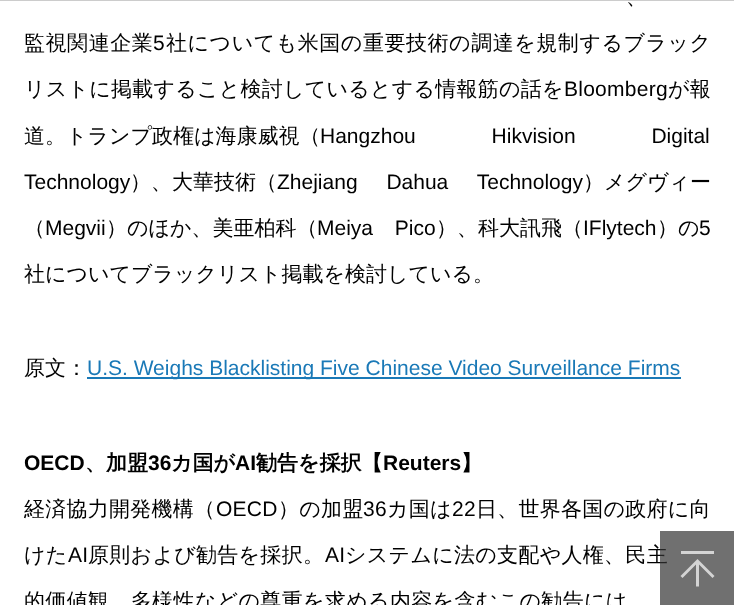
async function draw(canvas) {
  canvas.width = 734
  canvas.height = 605
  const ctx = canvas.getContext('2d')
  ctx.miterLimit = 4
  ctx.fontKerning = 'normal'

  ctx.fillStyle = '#fff'
  ctx.fillRect(0, 0, 734, 605)
  ctx.fillStyle = '#ccc'
  ctx.fillRect(0, 0, 734, 1)
  ctx.font = '500 21px WenQuanYi Zen Hei'
  ctx.fillStyle = '#000'
  ctx.fillText('、', 626, 4)
  ctx.letterSpacing = '0.55px'
  ctx.fillText('監視関連企業', 24, 50)
  ctx.font = '21px Liberation Sans'
  ctx.fillText('5', 153, 50)
  ctx.font = '500 21px WenQuanYi Zen Hei'
  ctx.fillText('社についても米国の重要技術の調達を規制するブラック', 166, 50)
  ctx.letterSpacing = '0.25px'
  ctx.fillText('リストに掲載すること検討しているとする情報筋の話を', 24, 96)
  ctx.font = '21px Liberation Sans'
  ctx.fillText('Bloomberg', 564, 96)
  ctx.font = '500 21px WenQuanYi Zen Hei'
  ctx.fillText('が報', 668, 96)
  ctx.letterSpacing = '0px'
  ctx.fillText('道。トランプ政権は海康威視（', 24, 143)
  ctx.wordSpacing = '70px'
  ctx.font = '21px Liberation Sans'
  ctx.fillText('Hangzhou Hikvision Digital', 320, 143)
  ctx.wordSpacing = '0px'
  ctx.fillText('Technology', 24, 189)
  ctx.font = '500 21px WenQuanYi Zen Hei'
  ctx.fillText('）、大華技術（', 130, 189)
  ctx.wordSpacing = '23px'
  ctx.font = '21px Liberation Sans'
  ctx.fillText('Zhejiang Dahua Technology', 277, 189)
  ctx.wordSpacing = '0px'
  ctx.font = '500 21px WenQuanYi Zen Hei'
  ctx.fillText('）メグヴィー', 583, 189)
  ctx.fillText('（', 24, 235)
  ctx.font = '21px Liberation Sans'
  ctx.fillText('Megvii', 45, 235)
  ctx.font = '500 21px WenQuanYi Zen Hei'
  ctx.fillText('）のほか、美亜柏科（', 106, 235)
  ctx.wordSpacing = '16px'
  ctx.font = '21px Liberation Sans'
  ctx.fillText('Meiya Pico', 317, 235)
  ctx.wordSpacing = '0px'
  ctx.font = '500 21px WenQuanYi Zen Hei'
  ctx.fillText('）、科大訊飛（', 436, 235)
  ctx.font = '21px Liberation Sans'
  ctx.fillText('IFlytech', 583, 235)
  ctx.font = '500 21px WenQuanYi Zen Hei'
  ctx.fillText('）の', 657, 235)
  ctx.font = '21px Liberation Sans'
  ctx.fillText('5', 699, 235)
  ctx.font = '500 21px WenQuanYi Zen Hei'
  ctx.fillText('社についてブラックリスト掲載を検討している。', 24, 281)
  ctx.fillText('原文：', 24, 375)
  ctx.fillStyle = '#1a79b7'
  ctx.fillRect(87, 377, 594, 2)
  ctx.font = '21px Liberation Sans'
  ctx.fillText('U.S. Weighs Blacklisting Five Chinese Video Surveillance Firms', 87, 375)
  ctx.font = 'bold 21px Liberation Sans'
  ctx.fillStyle = '#000'
  ctx.fillText('OECD', 24, 470)
  ctx.font = 'bold 21px WenQuanYi Zen Hei'
  ctx.fillText('、加盟', 85, 470)
  ctx.font = 'bold 21px Liberation Sans'
  ctx.fillText('36', 148, 470)
  ctx.font = 'bold 21px WenQuanYi Zen Hei'
  ctx.fillText('カ国が', 171, 470)
  ctx.font = 'bold 21px Liberation Sans'
  ctx.fillText('AI', 235, 470)
  ctx.font = 'bold 21px WenQuanYi Zen Hei'
  ctx.fillText('勧告を採択【', 256, 470)
  ctx.font = 'bold 21px Liberation Sans'
  ctx.fillText('Reuters', 383, 470)
  ctx.font = 'bold 21px WenQuanYi Zen Hei'
  ctx.fillText('】', 461, 470)
  ctx.letterSpacing = '0.25px'
  ctx.font = '500 21px WenQuanYi Zen Hei'
  ctx.fillText('経済協力開発機構（', 24, 516)
  ctx.font = '21px Liberation Sans'
  ctx.fillText('OECD', 216, 516)
  ctx.font = '500 21px WenQuanYi Zen Hei'
  ctx.fillText('）の加盟', 278, 516)
  ctx.font = '21px Liberation Sans'
  ctx.fillText('36', 363, 516)
  ctx.font = '500 21px WenQuanYi Zen Hei'
  ctx.fillText('カ国は', 387, 516)
  ctx.font = '21px Liberation Sans'
  ctx.fillText('22', 452, 516)
  ctx.font = '500 21px WenQuanYi Zen Hei'
  ctx.fillText('日、世界各国の政府に向', 476, 516)
  ctx.letterSpacing = '0.3px'
  ctx.fillText('けた', 24, 562)
  ctx.font = '21px Liberation Sans'
  ctx.fillText('AI', 68, 562)
  ctx.font = '500 21px WenQuanYi Zen Hei'
  ctx.fillText('原則および勧告を採択。', 88, 562)
  ctx.font = '21px Liberation Sans'
  ctx.fillText('AI', 325, 562)
  ctx.font = '500 21px WenQuanYi Zen Hei'
  ctx.fillText('システムに法の支配や人権、民主', 345, 562)
  ctx.letterSpacing = '0.35px'
  ctx.fillText('的価値観、多様性などの尊重を求める内容を含むこの勧告には', 24, 608)
  ctx.fillStyle = '#333333b3'
  ctx.fillRect(660, 531, 74, 74)
  ctx.fillStyle = '#ffffffb3'
  ctx.fillRect(681, 551, 33, 3)
  ctx.beginPath()
  ctx.moveTo(714.5, 576)
  ctx.lineTo(697.5, 559)
  ctx.lineTo(680.5, 576)
  ctx.lineTo(682.5, 578)
  ctx.lineTo(696, 564.5)
  ctx.lineTo(696, 586.5)
  ctx.lineTo(699, 586.5)
  ctx.lineTo(699, 564.5)
  ctx.lineTo(712.5, 578)
  ctx.closePath()
  ctx.fill()
}

draw(document.querySelector('canvas'))
